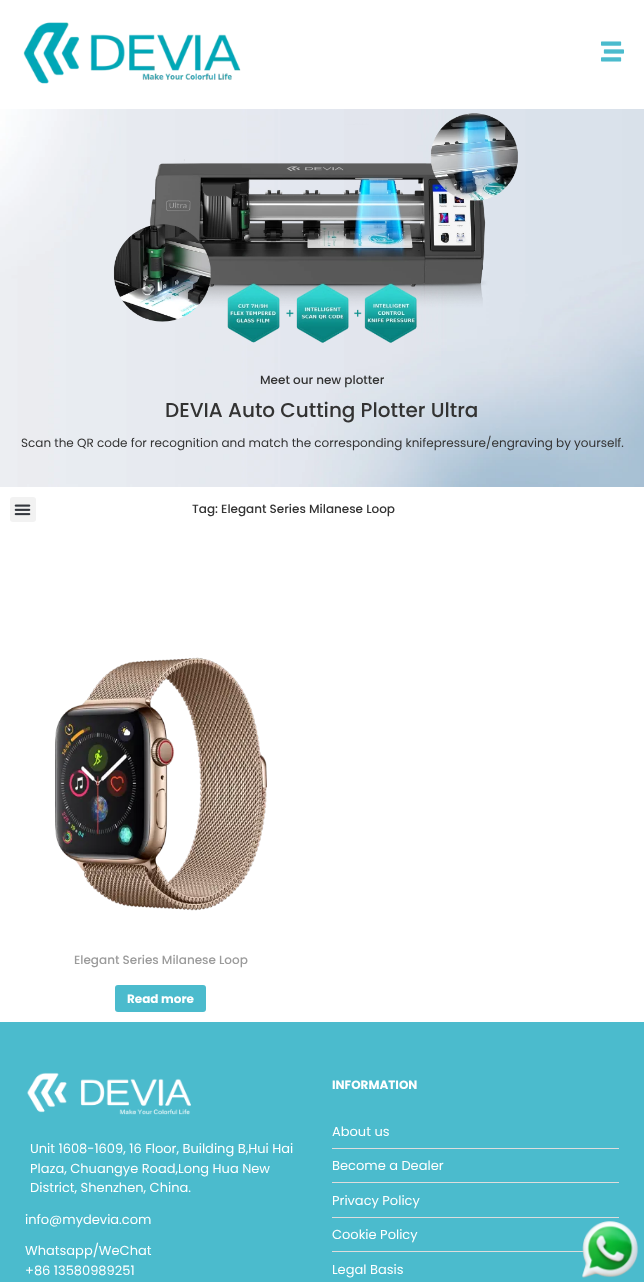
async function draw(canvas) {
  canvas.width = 644
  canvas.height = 1282
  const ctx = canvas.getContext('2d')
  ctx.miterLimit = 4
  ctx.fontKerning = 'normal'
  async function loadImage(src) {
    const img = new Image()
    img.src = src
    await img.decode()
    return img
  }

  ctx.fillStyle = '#fff'
  ctx.fillRect(0, 0, 644, 1282)
  ctx.drawImage(await loadImage('image0.png'), 23, 22, 218, 62)
  ctx.drawImage(await loadImage('image1.png'), 601, 41, 23, 21)
  ctx.drawImage(await loadImage('image2.png'), 0, 109, 644, 378)
  ctx.drawImage(await loadImage('image3.png'), 113, 113, 405, 230)
  ctx.font = '500 12px Poppins'
  ctx.fillStyle = '#333'
  ctx.fillText('Meet our new plotter', 260, 384)
  ctx.font = '500 20px Poppins'
  ctx.fillText('DEVIA Auto Cutting Plotter Ultra', 165, 417)
  ctx.font = '12px Poppins'
  ctx.fillText('Scan the QR code for recognition and match the corresponding knifepressure/engraving by yourself.', 21, 447)
  ctx.fillStyle = '#f2f2f2'
  ctx.beginPath()
  ctx.roundRect(10, 497, 26, 25, 3)
  ctx.fill()
  ctx.drawImage(await loadImage('image4.png'), 14, 504, 17, 12)
  ctx.font = '500 12px Poppins'
  ctx.fillStyle = '#333'
  ctx.fillText('Tag: Elegant Series Milanese Loop', 192, 513)
  ctx.drawImage(await loadImage('image5.png'), 55, 657, 212, 254)
  ctx.fillStyle = '#9b9b9b'
  ctx.fillText('Elegant Series Milanese Loop', 74, 964)
  ctx.fillStyle = '#4bbbcd'
  ctx.beginPath()
  ctx.roundRect(115, 985, 91, 27, 3)
  ctx.fill()
  ctx.font = 'bold 12px Poppins'
  ctx.fillStyle = '#fff'
  ctx.fillText('Read more', 127, 1003)
  ctx.fillStyle = '#4bbbcd'
  ctx.fillRect(0, 1022, 644, 260)
  ctx.drawImage(await loadImage('image6.png'), 27, 1072, 164, 43)
  ctx.font = '13px Poppins'
  ctx.fillStyle = '#fff'
  ctx.fillText('Unit 1608-1609, 16 Floor, Building B,Hui Hai', 30, 1153)
  ctx.fillText('Plaza, Chuangye Road,Long Hua New', 30, 1173)
  ctx.fillText('District, Shenzhen, China.', 30, 1192)
  ctx.fillText('info@mydevia.com', 25, 1224)
  ctx.fillText('Whatsapp/WeChat', 25, 1255)
  ctx.fillText('+86 13580989251', 25, 1275)
  ctx.font = 'bold 12px Poppins'
  ctx.fillText('INFORMATION', 332, 1089)
  ctx.font = '13px Poppins'
  ctx.fillText('About us', 332, 1136)
  ctx.fillStyle = '#ddd'
  ctx.fillRect(332, 1148, 287, 1)
  ctx.fillStyle = '#fff'
  ctx.fillText('Become a Dealer', 332, 1170)
  ctx.fillStyle = '#ddd'
  ctx.fillRect(332, 1182, 287, 1)
  ctx.fillStyle = '#fff'
  ctx.fillText('Privacy Policy', 332, 1205)
  ctx.fillStyle = '#ddd'
  ctx.fillRect(332, 1217, 287, 1)
  ctx.fillStyle = '#fff'
  ctx.fillText('Cookie Policy', 332, 1239)
  ctx.fillStyle = '#ddd'
  ctx.fillRect(332, 1251, 252, 1)
  ctx.fillStyle = '#fff'
  ctx.fillText('Legal Basis', 332, 1274)
  ctx.drawImage(await loadImage('image7.png'), 582, 1221, 57, 57)
}

draw(document.querySelector('canvas'))
